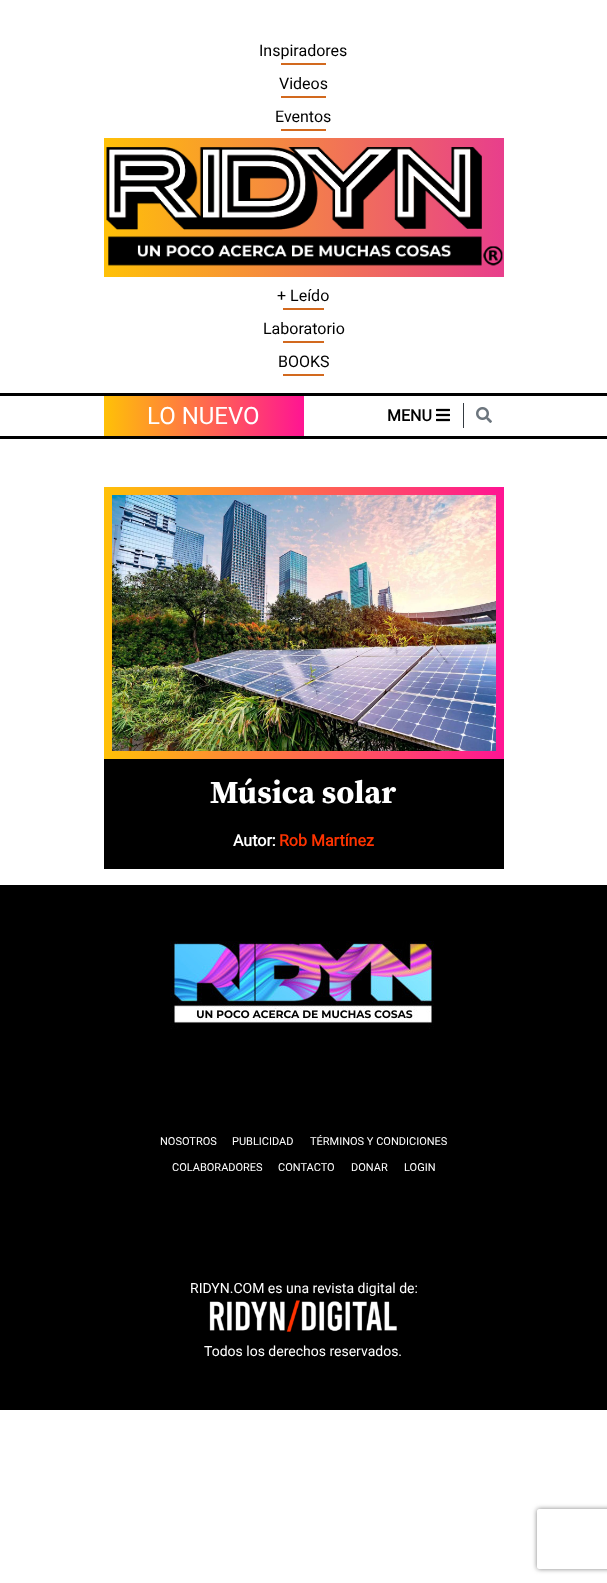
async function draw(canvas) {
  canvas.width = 607
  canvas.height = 1583
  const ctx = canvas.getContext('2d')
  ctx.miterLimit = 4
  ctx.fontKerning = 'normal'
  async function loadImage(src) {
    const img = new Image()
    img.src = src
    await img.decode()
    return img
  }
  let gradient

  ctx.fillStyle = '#fff'
  ctx.fillRect(0, 0, 607, 1583)
  ctx.font = '16px Roboto'
  ctx.fillStyle = '#000'
  ctx.fillText('Inspiradores', 259, 56)
  ctx.fillStyle = '#d2691e'
  ctx.fillRect(281, 63, 45, 2)
  ctx.fillStyle = '#000'
  ctx.fillText('Videos', 279, 89)
  ctx.fillStyle = '#d2691e'
  ctx.fillRect(281, 96, 45, 2)
  ctx.fillStyle = '#000'
  ctx.fillText('Eventos', 275, 122)
  ctx.fillStyle = '#d2691e'
  ctx.fillRect(281, 129, 45, 2)
  gradient = ctx.createLinearGradient(104, 208, 504, 208)
  gradient.addColorStop(0, '#ffc107')
  gradient.addColorStop(1, '#e83e8c')
  ctx.fillStyle = gradient
  ctx.fillRect(104, 138, 400, 139)
  ctx.drawImage(await loadImage('image0.png'), 106, 147, 397, 119)
  ctx.fillStyle = '#000'
  ctx.fillText('+ Leído', 277, 301)
  ctx.fillStyle = '#d2691e'
  ctx.fillRect(283, 308, 41, 2)
  ctx.fillStyle = '#000'
  ctx.fillText('Laboratorio', 263, 334)
  ctx.fillStyle = '#d2691e'
  ctx.fillRect(283, 341, 41, 2)
  ctx.fillStyle = '#000'
  ctx.fillText('BOOKS', 278, 367)
  ctx.fillStyle = '#d2691e'
  ctx.fillRect(283, 374, 41, 2)
  ctx.fillStyle = '#000'
  ctx.fillRect(0, 393, 607, 3)
  ctx.fillRect(0, 436, 607, 3)
  gradient = ctx.createLinearGradient(104, 416, 304, 416)
  gradient.addColorStop(0, '#ffc107')
  gradient.addColorStop(1, '#ff1493')
  ctx.fillStyle = gradient
  ctx.fillRect(104, 396, 200, 40)
  ctx.font = '24px Roboto'
  ctx.fillStyle = '#fff'
  ctx.fillText('LO NUEVO', 147, 424)
  ctx.font = 'bold 16px Roboto'
  ctx.fillStyle = '#000'
  ctx.fillText('MENU', 387, 421)
  ctx.drawImage(await loadImage('image1.png'), 436, 408, 14, 14)
  ctx.fillStyle = '#343a40'
  ctx.fillRect(463, 403, 1, 25)
  ctx.drawImage(await loadImage('image2.png'), 476, 407, 16, 16)
  ctx.fillStyle = '#000'
  ctx.fillRect(104, 759, 400, 110)
  gradient = ctx.createLinearGradient(104, 623, 504, 623)
  gradient.addColorStop(0, '#ffc107')
  gradient.addColorStop(1, '#ff1493')
  ctx.fillStyle = gradient
  ctx.fillRect(104, 487, 400, 272)
  ctx.drawImage(await loadImage('image3.png'), 112, 495, 384, 256)
  ctx.font = 'bold 32px Source Serif Pro'
  ctx.fillStyle = '#fff'
  ctx.fillText('Música solar', 210, 803)
  ctx.font = 'bold 16px Roboto'
  ctx.fillText('Autor:', 233, 846)
  ctx.fillStyle = '#fd3300'
  ctx.fillText('Rob Martínez', 279, 846)
  ctx.fillStyle = '#000'
  ctx.fillRect(0, 885, 607, 525)
  ctx.drawImage(await loadImage('image4.png'), 170, 941, 264, 88)
  ctx.font = '11px Roboto'
  ctx.fillStyle = '#fff'
  ctx.fillText('NOSOTROS', 160, 1145)
  ctx.fillText('PUBLICIDAD', 232, 1145)
  ctx.fillText('TÉRMINOS Y CONDICIONES', 310, 1145)
  ctx.fillText('COLABORADORES', 172, 1171)
  ctx.fillText('CONTACTO', 278, 1171)
  ctx.fillText('DONAR', 351, 1171)
  ctx.fillText('LOGIN', 404, 1171)
  ctx.font = '14px Roboto'
  ctx.fillText('RIDYN.COM es una revista digital de:', 190, 1293)
  ctx.drawImage(await loadImage('image5.png'), 209, 1300, 188, 32)
  ctx.fillText('Todos los derechos reservados.', 204, 1356)
  ctx.save()
  ctx.beginPath()
  ctx.moveTo(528, 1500)
  ctx.lineTo(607, 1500)
  ctx.lineTo(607, 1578)
  ctx.lineTo(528, 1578)
  ctx.closePath()
  ctx.moveTo(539, 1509)
  ctx.lineTo(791, 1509)
  ctx.bezierCurveTo(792, 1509, 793, 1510, 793, 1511)
  ctx.lineTo(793, 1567)
  ctx.bezierCurveTo(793, 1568, 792, 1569, 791, 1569)
  ctx.lineTo(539, 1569)
  ctx.bezierCurveTo(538, 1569, 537, 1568, 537, 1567)
  ctx.lineTo(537, 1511)
  ctx.bezierCurveTo(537, 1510, 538, 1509, 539, 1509)
  ctx.closePath()
  ctx.clip('evenodd')
  ctx.fillStyle = '#808080'
  ctx.filter = 'blur(2.5px)'
  ctx.beginPath()
  ctx.roundRect(537, 1509, 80, 60, 2)
  ctx.fill()
  ctx.filter = 'none'
  ctx.restore()
}

draw(document.querySelector('canvas'))
